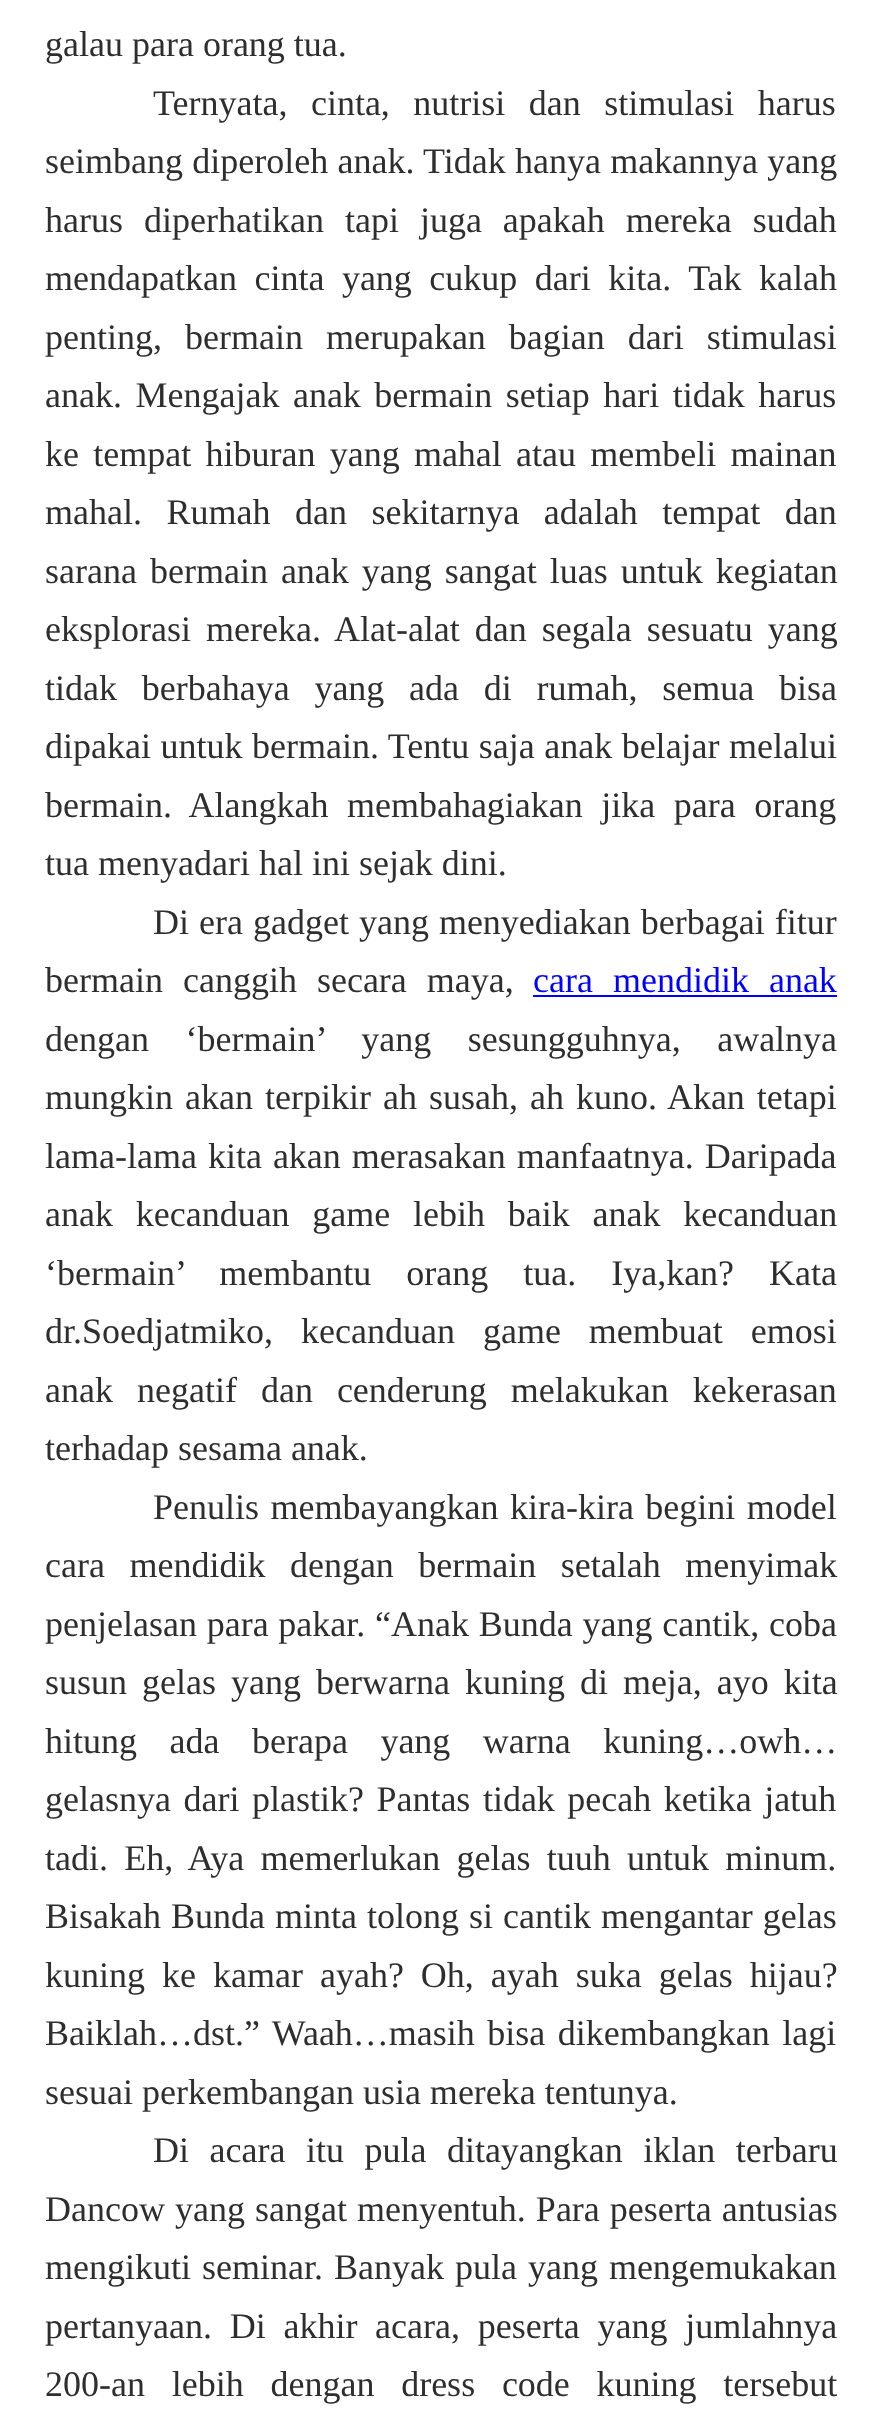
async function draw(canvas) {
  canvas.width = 882
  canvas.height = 2432
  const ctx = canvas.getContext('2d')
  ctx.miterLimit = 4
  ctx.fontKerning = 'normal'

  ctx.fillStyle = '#fff'
  ctx.fillRect(0, 0, 882, 2432)
  ctx.font = '36px Liberation Serif'
  ctx.fillStyle = '#2e2e2e'
  ctx.fillText('galau para orang tua.', 45, 56)
  ctx.wordSpacing = '14.5px'
  ctx.fillText('Ternyata, cinta, nutrisi dan stimulasi harus', 153, 115)
  ctx.wordSpacing = '0.25px'
  ctx.fillText('seimbang diperoleh anak. Tidak hanya makannya yang', 45, 173)
  ctx.wordSpacing = '12px'
  ctx.fillText('harus diperhatikan tapi juga apakah mereka sudah', 45, 232)
  ctx.wordSpacing = '8.5px'
  ctx.fillText('mendapatkan cinta yang cukup dari kita. Tak kalah', 45, 290)
  ctx.wordSpacing = '14px'
  ctx.fillText('penting, bermain merupakan bagian dari stimulasi', 45, 349)
  ctx.wordSpacing = '4.5px'
  ctx.fillText('anak. Mengajak anak bermain setiap hari tidak harus', 45, 407)
  ctx.wordSpacing = '5.25px'
  ctx.fillText('ke tempat hiburan yang mahal atau membeli mainan', 45, 466)
  ctx.wordSpacing = '15.5px'
  ctx.fillText('mahal. Rumah dan sekitarnya adalah tempat dan', 45, 524)
  ctx.wordSpacing = '4px'
  ctx.fillText('sarana bermain anak yang sangat luas untuk kegiatan', 45, 583)
  ctx.wordSpacing = '6px'
  ctx.fillText('eksplorasi mereka. Alat-alat dan segala sesuatu yang', 45, 641)
  ctx.wordSpacing = '15.75px'
  ctx.fillText('tidak berbahaya yang ada di rumah, semua bisa', 45, 700)
  ctx.wordSpacing = '0.5px'
  ctx.fillText('dipakai untuk bermain. Tentu saja anak belajar melalui', 45, 758)
  ctx.wordSpacing = '9.5px'
  ctx.fillText('bermain. Alangkah membahagiakan jika para orang', 45, 817)
  ctx.wordSpacing = '0px'
  ctx.fillText('tua menyadari hal ini sejak dini.', 45, 875)
  ctx.wordSpacing = '1px'
  ctx.fillText('Di era gadget yang menyediakan berbagai fitur', 153, 934)
  ctx.wordSpacing = '11px'
  ctx.fillText('bermain canggih secara maya,', 45, 992)
  ctx.fillStyle = '#00f'
  ctx.fillText('cara mendidik anak', 533, 992)
  ctx.fillRect(533, 995, 304, 2)
  ctx.wordSpacing = '27.5px'
  ctx.fillStyle = '#2e2e2e'
  ctx.fillText('dengan ‘bermain’ yang sesungguhnya, awalnya', 45, 1051)
  ctx.wordSpacing = '3px'
  ctx.fillText('mungkin akan terpikir ah susah, ah kuno. Akan tetapi', 45, 1109)
  ctx.wordSpacing = '2px'
  ctx.fillText('lama-lama kita akan merasakan manfaatnya. Daripada', 45, 1168)
  ctx.wordSpacing = '13.75px'
  ctx.fillText('anak kecanduan game lebih baik anak kecanduan', 45, 1226)
  ctx.wordSpacing = '26px'
  ctx.fillText('‘bermain’ membantu orang tua. Iya,kan? Kata', 45, 1285)
  ctx.wordSpacing = '19px'
  ctx.fillText('dr.Soedjatmiko, kecanduan game membuat emosi', 45, 1343)
  ctx.wordSpacing = '15px'
  ctx.fillText('anak negatif dan cenderung melakukan kekerasan', 45, 1402)
  ctx.wordSpacing = '0px'
  ctx.fillText('terhadap sesama anak.', 45, 1460)
  ctx.wordSpacing = '2.5px'
  ctx.fillText('Penulis membayangkan kira-kira begini model', 153, 1519)
  ctx.wordSpacing = '15.5px'
  ctx.fillText('cara mendidik dengan bermain setalah menyimak', 45, 1577)
  ctx.wordSpacing = '0.75px'
  ctx.fillText('penjelasan para pakar. “Anak Bunda yang cantik, coba', 45, 1636)
  ctx.wordSpacing = '6px'
  ctx.fillText('susun gelas yang berwarna kuning di meja, ayo kita', 45, 1694)
  ctx.wordSpacing = '23.5px'
  ctx.fillText('hitung ada berapa yang warna kuning…owh…', 45, 1753)
  ctx.wordSpacing = '3.5px'
  ctx.fillText('gelasnya dari plastik? Pantas tidak pecah ketika jatuh', 45, 1811)
  ctx.wordSpacing = '7.25px'
  ctx.fillText('tadi. Eh, Aya memerlukan gelas tuuh untuk minum.', 45, 1870)
  ctx.wordSpacing = '1px'
  ctx.fillText('Bisakah Bunda minta tolong si cantik mengantar gelas', 45, 1928)
  ctx.wordSpacing = '8px'
  ctx.fillText('kuning ke kamar ayah? Oh, ayah suka gelas hijau?', 45, 1987)
  ctx.wordSpacing = '3.5px'
  ctx.fillText('Baiklah…dst.” Waah…masih bisa dikembangkan lagi', 45, 2045)
  ctx.wordSpacing = '0px'
  ctx.fillText('sesuai perkembangan usia mereka tentunya.', 45, 2104)
  ctx.wordSpacing = '11.5px'
  ctx.fillText('Di acara itu pula ditayangkan iklan terbaru', 153, 2162)
  ctx.wordSpacing = '1px'
  ctx.fillText('Dancow yang sangat menyentuh. Para peserta antusias', 45, 2221)
  ctx.wordSpacing = '2px'
  ctx.fillText('mengikuti seminar. Banyak pula yang mengemukakan', 45, 2279)
  ctx.wordSpacing = '8.75px'
  ctx.fillText('pertanyaan. Di akhir acara, peserta yang jumlahnya', 45, 2338)
  ctx.wordSpacing = '17.75px'
  ctx.fillText('200-an lebih dengan dress code kuning tersebut', 45, 2396)
}

draw(document.querySelector('canvas'))
